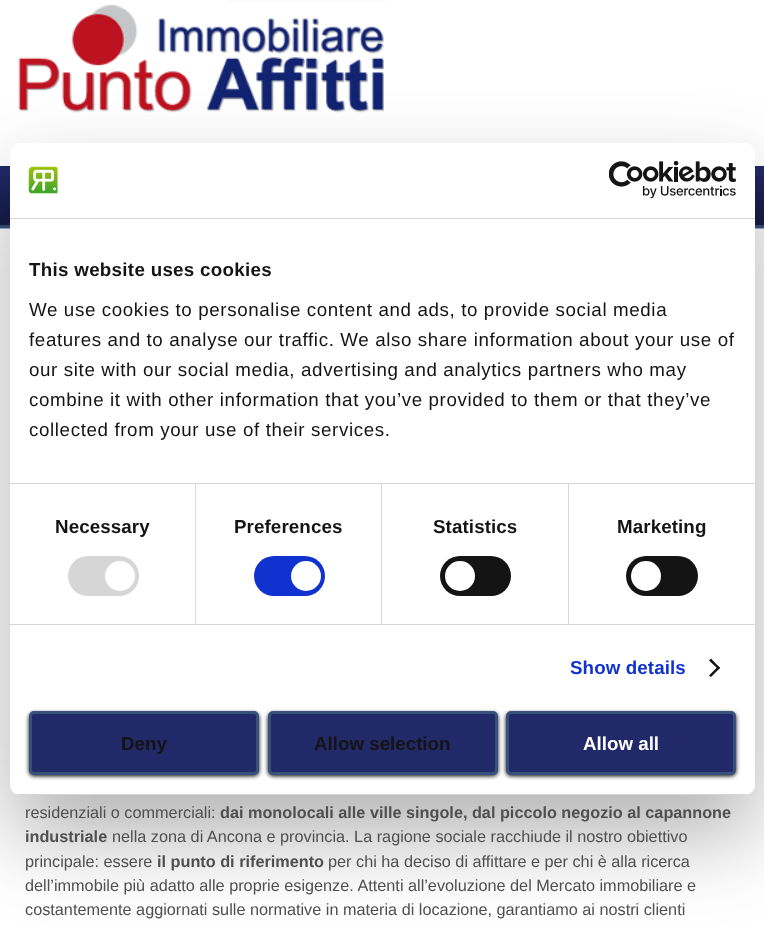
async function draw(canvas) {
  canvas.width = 764
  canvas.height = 936
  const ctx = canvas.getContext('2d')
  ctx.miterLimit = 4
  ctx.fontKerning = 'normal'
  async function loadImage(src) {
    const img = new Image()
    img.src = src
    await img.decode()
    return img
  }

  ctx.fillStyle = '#fff'
  ctx.fillRect(0, 0, 764, 936)
  ctx.drawImage(await loadImage('image2.png'), 0, 0, 764, 166)
  ctx.drawImage(await loadImage('image3.png'), 18, 0, 368, 113)
  ctx.fillStyle = '#212968'
  ctx.fillRect(0, 166, 764, 59)
  ctx.drawImage(await loadImage('image4.png'), 0, 176, 764, 49)
  ctx.fillStyle = '#36517a'
  ctx.fillRect(0, 225, 764, 3)
  ctx.fillStyle = '#a2b2cc'
  ctx.fillRect(0, 228, 764, 1)
  ctx.fillStyle = '#0000004d'
  ctx.filter = 'blur(42.5px)'
  ctx.beginPath()
  ctx.roundRect(10, 183, 745, 652, 10)
  ctx.fill()
  ctx.filter = 'none'
  ctx.fillStyle = '#fff'
  ctx.beginPath()
  ctx.roundRect(10, 143, 745, 652, 10)
  ctx.fill()
  ctx.fillStyle = '#d6d6d6'
  ctx.fillRect(10, 218, 745, 1)
  ctx.drawImage(await loadImage('image0.png'), 28, 166, 30, 28)
  ctx.drawImage(await loadImage('image1.png'), 609, 161, 127, 38)
  ctx.fillRect(10, 483, 745, 1)
  ctx.letterSpacing = '0.3px'
  ctx.font = 'bold 18.75px Liberation Sans'
  ctx.fillStyle = '#141414'
  ctx.fillText('This website uses cookies', 29, 276)
  ctx.letterSpacing = '0.62px'
  ctx.font = '18.75px Liberation Sans'
  ctx.fillText('We use cookies to personalise content and ads, to provide social media', 29, 316)
  ctx.fillText('features and to analyse our traffic. We also share information about your use of', 29, 346)
  ctx.fillText('our site with our social media, advertising and analytics partners who may', 29, 376)
  ctx.fillText('combine it with other information that you’ve provided to them or that they’ve', 29, 406)
  ctx.fillText('collected from your use of their services.', 29, 436)
  ctx.fillStyle = '#d6d6d6'
  ctx.fillRect(10, 624, 745, 1)
  ctx.fillRect(195, 484, 1, 140)
  ctx.letterSpacing = '0.1px'
  ctx.font = 'bold 18.75px Liberation Sans'
  ctx.fillStyle = '#141414'
  ctx.fillText('Necessary', 55, 533)
  ctx.fillStyle = '#d6d6d6'
  ctx.beginPath()
  ctx.roundRect(68, 556, 71, 40, 20)
  ctx.fill()
  ctx.fillStyle = '#fff'
  ctx.beginPath()
  ctx.arc(120, 576, 15, 0, 2 * Math.PI)
  ctx.fill()
  ctx.fillStyle = '#d6d6d6'
  ctx.fillRect(381, 484, 1, 140)
  ctx.fillStyle = '#141414'
  ctx.fillText('Preferences', 234, 533)
  ctx.fillStyle = '#1032cf'
  ctx.beginPath()
  ctx.roundRect(254, 556, 71, 40, 20)
  ctx.fill()
  ctx.fillStyle = '#fff'
  ctx.beginPath()
  ctx.arc(306, 576, 15, 0, 2 * Math.PI)
  ctx.fill()
  ctx.fillStyle = '#d6d6d6'
  ctx.fillRect(568, 484, 1, 140)
  ctx.fillStyle = '#141414'
  ctx.fillText('Statistics', 433, 533)
  ctx.beginPath()
  ctx.roundRect(440, 556, 71, 40, 20)
  ctx.fill()
  ctx.fillStyle = '#fff'
  ctx.beginPath()
  ctx.arc(460, 576, 15, 0, 2 * Math.PI)
  ctx.fill()
  ctx.fillStyle = '#141414'
  ctx.fillText('Marketing', 617, 533)
  ctx.beginPath()
  ctx.roundRect(626, 556, 72, 40, 20)
  ctx.fill()
  ctx.fillStyle = '#fff'
  ctx.beginPath()
  ctx.arc(646, 576, 15, 0, 2 * Math.PI)
  ctx.fill()
  ctx.fillStyle = '#1032cf'
  ctx.fillText('Show details', 570, 674)
  ctx.fillStyle = '#141414'
  ctx.beginPath()
  ctx.moveTo(711, 658.5)
  ctx.lineTo(720, 668)
  ctx.lineTo(718.5, 669.5)
  ctx.lineTo(709, 660.5)
  ctx.closePath()
  ctx.fill()
  ctx.beginPath()
  ctx.moveTo(718.5, 666)
  ctx.lineTo(720, 668)
  ctx.lineTo(711, 677)
  ctx.lineTo(709, 675.5)
  ctx.closePath()
  ctx.fill()
  ctx.save()
  ctx.beginPath()
  ctx.roundRect(10, 143, 745, 652, 10)
  ctx.clip()
  ctx.fillStyle = '#d6d6d6'
  ctx.fillRect(10, 794, 745, 1)
  ctx.restore()
  ctx.fillStyle = '#000'
  ctx.filter = 'blur(2px)'
  ctx.beginPath()
  ctx.roundRect(29, 713, 230, 63, 5)
  ctx.fill()
  ctx.filter = 'none'
  ctx.fillStyle = '#212968'
  ctx.beginPath()
  ctx.roundRect(30.5, 712.5, 227, 61, 3.5)
  ctx.fill()
  ctx.strokeStyle = '#36517a'
  ctx.lineWidth = 3
  ctx.stroke()
  ctx.letterSpacing = '0px'
  ctx.fillStyle = '#141414'
  ctx.fillText('Deny', 121, 750)
  ctx.fillStyle = '#000'
  ctx.filter = 'blur(2px)'
  ctx.beginPath()
  ctx.roundRect(268, 713, 230, 63, 5)
  ctx.fill()
  ctx.filter = 'none'
  ctx.fillStyle = '#212968'
  ctx.beginPath()
  ctx.roundRect(269.5, 712.5, 227, 61, 3.5)
  ctx.fill()
  ctx.stroke()
  ctx.fillStyle = '#141414'
  ctx.fillText('Allow selection', 314, 750)
  ctx.fillStyle = '#000'
  ctx.filter = 'blur(2px)'
  ctx.beginPath()
  ctx.roundRect(506, 713, 230, 63, 5)
  ctx.fill()
  ctx.filter = 'none'
  ctx.fillStyle = '#212968'
  ctx.beginPath()
  ctx.roundRect(507.5, 712.5, 227, 61, 3.5)
  ctx.fill()
  ctx.stroke()
  ctx.fillStyle = '#fff'
  ctx.fillText('Allow all', 583, 750)
  ctx.font = '16.25px Liberation Sans'
  ctx.fillStyle = '#4f4f4f'
  ctx.fillText('residenziali o commerciali:', 25, 818)
  ctx.font = 'bold 16.25px Liberation Sans'
  ctx.fillText('dai monolocali alle ville singole, dal piccolo negozio al capannone', 220, 818)
  ctx.fillText('industriale', 25, 842)
  ctx.font = '16.25px Liberation Sans'
  ctx.fillText('nella zona di Ancona e provincia. La ragione sociale racchiude il nostro obiettivo', 112, 842)
  ctx.fillText('principale: essere', 25, 867)
  ctx.font = 'bold 16.25px Liberation Sans'
  ctx.fillText('il punto di riferimento', 157, 867)
  ctx.font = '16.25px Liberation Sans'
  ctx.fillText('per chi ha deciso di affittare e per chi è alla ricerca', 328, 867)
  ctx.fillText('dell’immobile più adatto alle proprie esigenze. Attenti all’evoluzione del Mercato immobiliare e', 25, 891)
  ctx.fillText('costantemente aggiornati sulle normative in materia di locazione, garantiamo ai nostri clienti', 25, 915)
}

draw(document.querySelector('canvas'))
